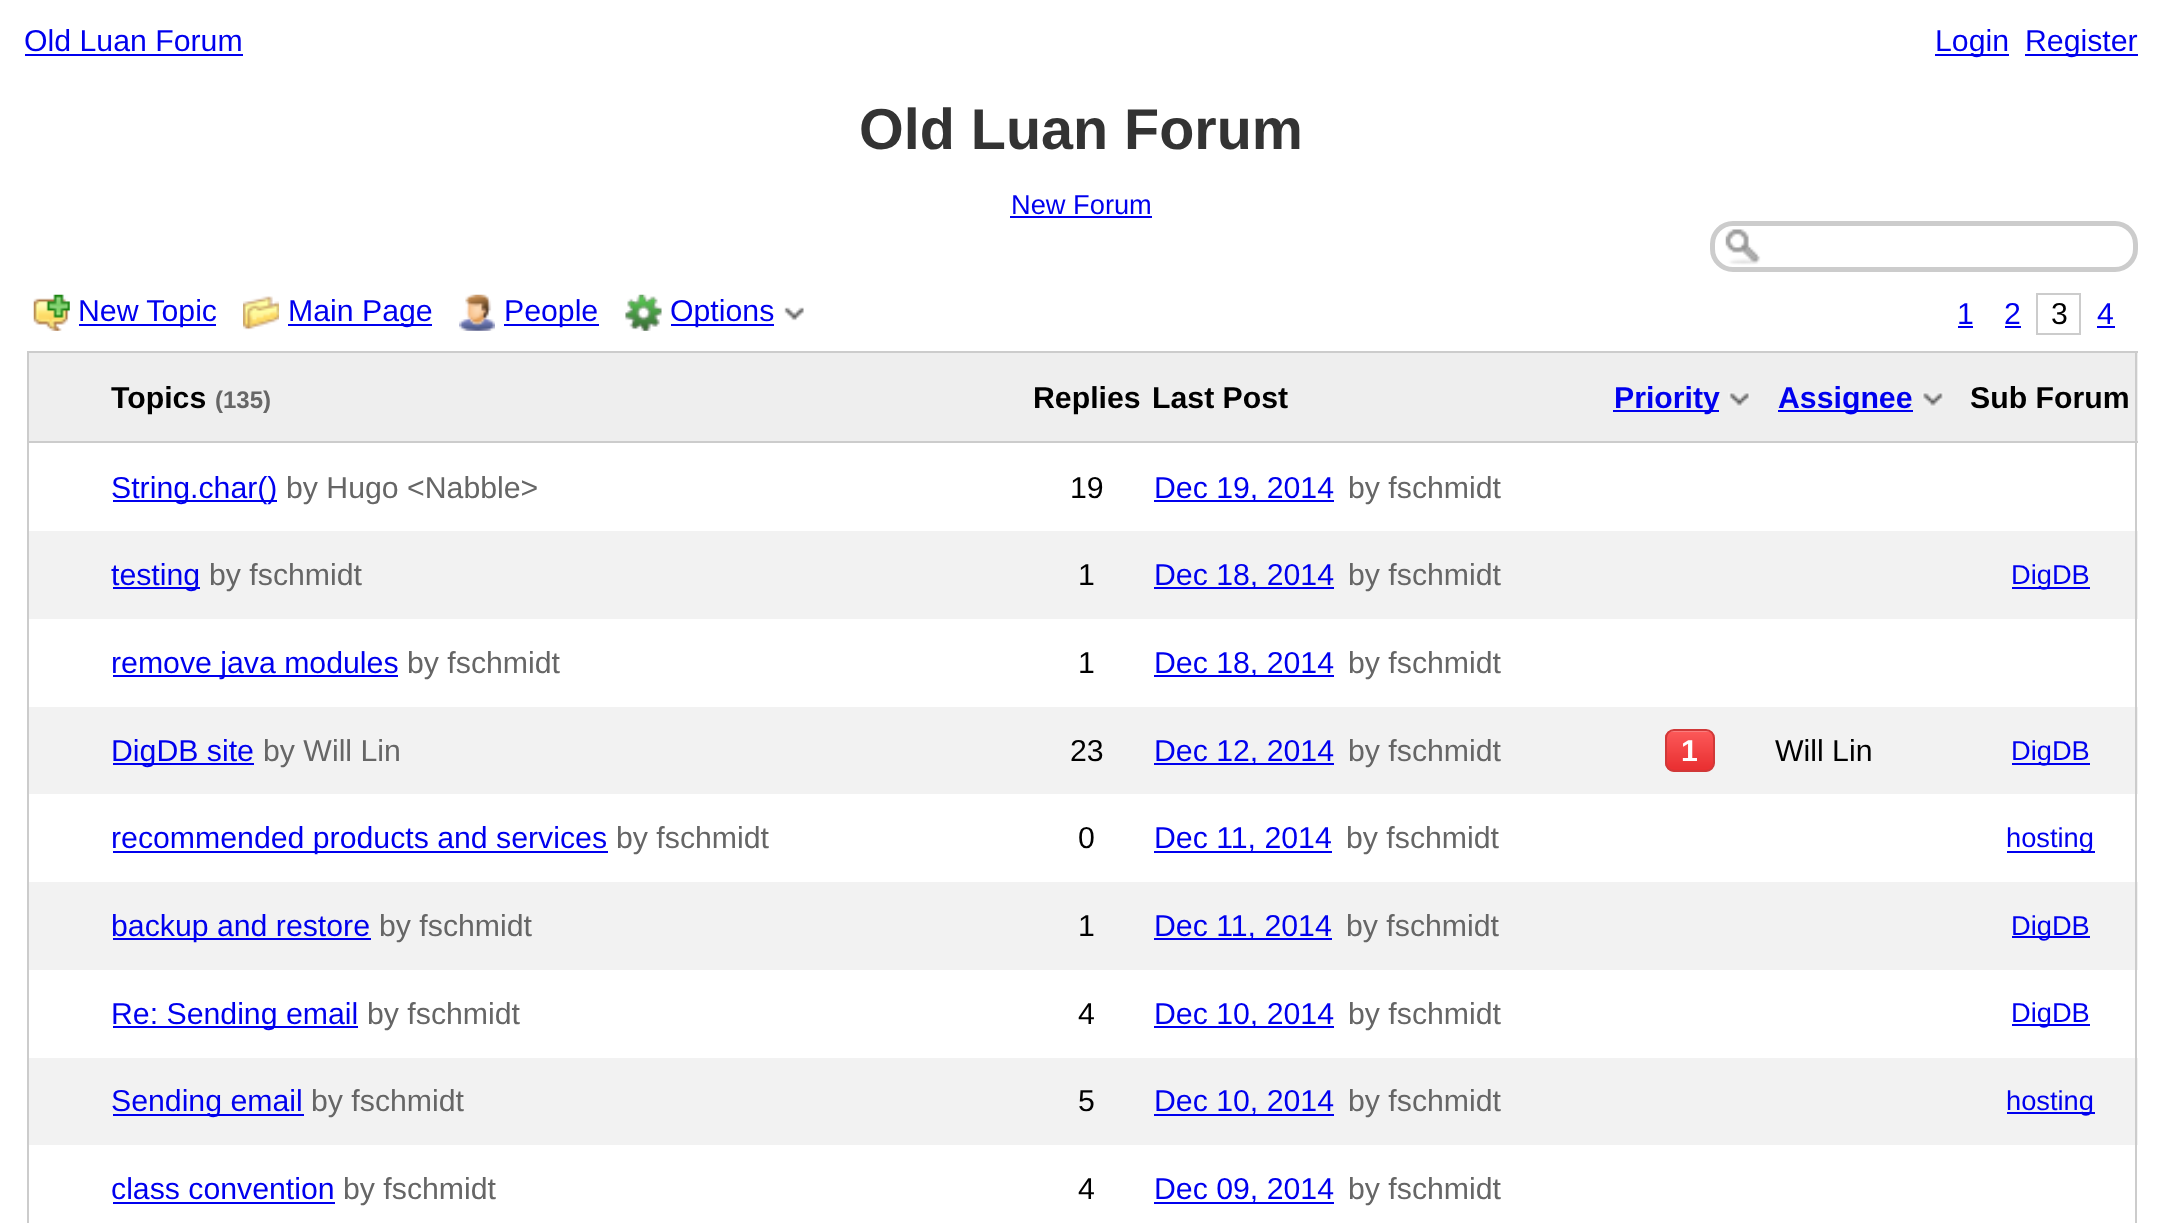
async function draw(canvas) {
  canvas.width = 2161
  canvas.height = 1223
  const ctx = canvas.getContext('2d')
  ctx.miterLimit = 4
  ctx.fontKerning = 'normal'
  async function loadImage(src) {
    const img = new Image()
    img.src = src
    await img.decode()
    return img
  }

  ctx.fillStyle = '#fff'
  ctx.fillRect(0, 0, 2161, 1223)
  ctx.font = '30.25px Liberation Sans'
  ctx.fillStyle = '#00e'
  ctx.fillText('Old Luan Forum', 24, 51)
  ctx.fillRect(25, 54, 218, 2)
  ctx.fillRect(1935, 54, 74, 2)
  ctx.fillText('Login', 1935, 51)
  ctx.fillRect(2025, 54, 113, 2)
  ctx.fillText('Register', 2025, 51)
  ctx.font = 'bold 57.5px Liberation Sans'
  ctx.fillStyle = '#333'
  ctx.fillText('Old Luan Forum', 859, 149)
  ctx.font = '27.25px Liberation Sans'
  ctx.fillStyle = '#00e'
  ctx.fillText('New Forum', 1011, 214)
  ctx.fillRect(1010, 216, 142, 2)
  ctx.drawImage(await loadImage('image0.png'), 1725, 229, 36, 36)
  ctx.beginPath()
  ctx.roundRect(1712.5, 223.5, 423, 46, 20.5)
  ctx.strokeStyle = '#ccc'
  ctx.lineWidth = 5
  ctx.stroke()
  ctx.drawImage(await loadImage('image1.png'), 33, 294, 37, 37)
  ctx.fillRect(79, 324, 137, 2)
  ctx.font = '30.25px Liberation Sans'
  ctx.fillText('New Topic', 78, 321)
  ctx.drawImage(await loadImage('image2.png'), 243, 296, 36, 34)
  ctx.fillRect(288, 324, 144, 2)
  ctx.fillText('Main Page', 288, 321)
  ctx.drawImage(await loadImage('image3.png'), 459, 294, 36, 37)
  ctx.fillRect(504, 324, 95, 2)
  ctx.fillText('People', 504, 321)
  ctx.drawImage(await loadImage('image4.png'), 625, 294, 37, 37)
  ctx.fillRect(671, 324, 103, 2)
  ctx.fillText('Options', 670, 321)
  ctx.drawImage(await loadImage('image5.png'), 784, 307, 20, 14)
  ctx.fillText('1', 1957, 324)
  ctx.fillRect(1958, 326, 15, 2)
  ctx.fillText('2', 2004, 324)
  ctx.fillRect(2005, 326, 16, 2)
  ctx.lineWidth = 2
  ctx.strokeRect(2037, 294, 43, 40)
  ctx.fillStyle = '#000'
  ctx.fillText('3', 2051, 324)
  ctx.fillStyle = '#00e'
  ctx.fillText('4', 2097, 324)
  ctx.fillRect(2097, 326, 18, 2)
  ctx.fillStyle = '#ccc'
  ctx.fillRect(27, 351, 2111, 2)
  ctx.fillStyle = '#eee'
  ctx.fillRect(29, 353, 2109, 88)
  ctx.fillStyle = '#f2f2f2'
  ctx.fillRect(29, 531, 2109, 88)
  ctx.fillRect(29, 707, 2109, 87)
  ctx.fillRect(29, 882, 2109, 88)
  ctx.fillRect(29, 1058, 2109, 87)
  ctx.fillStyle = '#ccc'
  ctx.fillRect(2135, 351, 2, 872)
  ctx.fillRect(27, 351, 2, 872)
  ctx.font = 'bold 30.25px Liberation Sans'
  ctx.fillStyle = '#000'
  ctx.fillText('Topics', 111, 408)
  ctx.font = 'bold 24px Liberation Sans'
  ctx.fillStyle = '#666'
  ctx.fillText('(135)', 215, 408)
  ctx.font = 'bold 30.25px Liberation Sans'
  ctx.fillStyle = '#000'
  ctx.fillText('Replies', 1033, 408)
  ctx.fillText('Last Post', 1152, 408)
  ctx.fillStyle = '#00e'
  ctx.fillRect(1613, 410, 106, 2)
  ctx.fillText('Priority', 1614, 408)
  ctx.drawImage(await loadImage('image6.png'), 1728, 392, 22, 15)
  ctx.fillRect(1778, 410, 135, 2)
  ctx.fillText('Assignee', 1778, 408)
  ctx.drawImage(await loadImage('image7.png'), 1922, 392, 22, 15)
  ctx.fillStyle = '#ccc'
  ctx.fillRect(27, 441, 2111, 2)
  ctx.fillStyle = '#000'
  ctx.fillText('Sub Forum', 1970, 408)
  ctx.fillStyle = '#00e'
  ctx.fillRect(113, 500, 164, 2)
  ctx.font = '30.25px Liberation Sans'
  ctx.fillText('String.char()', 111, 498)
  ctx.fillStyle = '#666'
  ctx.fillText('by Hugo <Nabble>', 286, 498)
  ctx.fillStyle = '#000'
  ctx.fillText('19', 1070, 498)
  ctx.fillStyle = '#00e'
  ctx.fillRect(1154, 500, 180, 2)
  ctx.fillText('Dec 19, 2014', 1154, 498)
  ctx.fillStyle = '#666'
  ctx.fillText('by fschmidt', 1348, 498)
  ctx.fillStyle = '#00e'
  ctx.fillRect(113, 587, 87, 2)
  ctx.fillText('testing', 111, 585)
  ctx.fillStyle = '#666'
  ctx.fillText('by fschmidt', 209, 585)
  ctx.fillStyle = '#000'
  ctx.fillText('1', 1078, 585)
  ctx.fillStyle = '#00e'
  ctx.fillRect(1154, 587, 180, 2)
  ctx.fillText('Dec 18, 2014', 1154, 585)
  ctx.fillStyle = '#666'
  ctx.fillText('by fschmidt', 1348, 585)
  ctx.fillStyle = '#00e'
  ctx.fillRect(2012, 587, 78, 2)
  ctx.font = '27.25px Liberation Sans'
  ctx.fillText('DigDB', 2011, 584)
  ctx.fillRect(113, 675, 285, 2)
  ctx.font = '30.25px Liberation Sans'
  ctx.fillText('remove java modules', 111, 673)
  ctx.fillStyle = '#666'
  ctx.fillText('by fschmidt', 407, 673)
  ctx.fillStyle = '#000'
  ctx.fillText('1', 1078, 673)
  ctx.fillStyle = '#00e'
  ctx.fillRect(1154, 675, 180, 2)
  ctx.fillText('Dec 18, 2014', 1154, 673)
  ctx.fillStyle = '#666'
  ctx.fillText('by fschmidt', 1348, 673)
  ctx.fillStyle = '#00e'
  ctx.fillRect(113, 763, 141, 2)
  ctx.fillText('DigDB site', 111, 761)
  ctx.fillStyle = '#666'
  ctx.fillText('by Will Lin', 263, 761)
  ctx.fillStyle = '#000'
  ctx.fillText('23', 1070, 761)
  ctx.fillStyle = '#00e'
  ctx.fillRect(1154, 763, 180, 2)
  ctx.fillText('Dec 12, 2014', 1154, 761)
  ctx.fillStyle = '#666'
  ctx.fillText('by fschmidt', 1348, 761)
  ctx.drawImage(await loadImage('image8.png'), 1665, 731, 50, 41)
  ctx.beginPath()
  ctx.roundRect(1666, 730, 48, 41, 8)
  ctx.strokeStyle = '#d13838'
  ctx.stroke()
  ctx.font = 'bold 30.25px Liberation Sans'
  ctx.fillStyle = '#fff'
  ctx.fillText('1', 1681, 761)
  ctx.font = '30.25px Liberation Sans'
  ctx.fillStyle = '#000'
  ctx.fillText('Will Lin', 1775, 761)
  ctx.fillStyle = '#00e'
  ctx.fillRect(2012, 763, 78, 2)
  ctx.font = '27.25px Liberation Sans'
  ctx.fillText('DigDB', 2011, 760)
  ctx.fillRect(113, 851, 495, 2)
  ctx.font = '30.25px Liberation Sans'
  ctx.fillText('recommended products and services', 111, 848)
  ctx.fillStyle = '#666'
  ctx.fillText('by fschmidt', 616, 848)
  ctx.fillStyle = '#000'
  ctx.fillText('0', 1078, 848)
  ctx.fillStyle = '#00e'
  ctx.fillRect(1154, 851, 178, 2)
  ctx.fillText('Dec 11, 2014', 1154, 848)
  ctx.fillStyle = '#666'
  ctx.fillText('by fschmidt', 1346, 848)
  ctx.fillStyle = '#00e'
  ctx.fillRect(2007, 851, 88, 2)
  ctx.font = '27.25px Liberation Sans'
  ctx.fillText('hosting', 2006, 847)
  ctx.fillRect(113, 938, 258, 2)
  ctx.font = '30.25px Liberation Sans'
  ctx.fillText('backup and restore', 111, 936)
  ctx.fillStyle = '#666'
  ctx.fillText('by fschmidt', 379, 936)
  ctx.fillStyle = '#000'
  ctx.fillText('1', 1078, 936)
  ctx.fillStyle = '#00e'
  ctx.fillRect(1154, 938, 178, 2)
  ctx.fillText('Dec 11, 2014', 1154, 936)
  ctx.fillStyle = '#666'
  ctx.fillText('by fschmidt', 1346, 936)
  ctx.fillStyle = '#00e'
  ctx.fillRect(2012, 936, 78, 2)
  ctx.font = '27.25px Liberation Sans'
  ctx.fillText('DigDB', 2011, 935)
  ctx.fillRect(113, 1026, 245, 2)
  ctx.font = '30.25px Liberation Sans'
  ctx.fillText('Re: Sending email', 111, 1024)
  ctx.fillStyle = '#666'
  ctx.fillText('by fschmidt', 367, 1024)
  ctx.fillStyle = '#000'
  ctx.fillText('4', 1078, 1024)
  ctx.fillStyle = '#00e'
  ctx.fillRect(1154, 1026, 180, 2)
  ctx.fillText('Dec 10, 2014', 1154, 1024)
  ctx.fillStyle = '#666'
  ctx.fillText('by fschmidt', 1348, 1024)
  ctx.fillStyle = '#00e'
  ctx.fillRect(2012, 1024, 78, 2)
  ctx.font = '27.25px Liberation Sans'
  ctx.fillText('DigDB', 2011, 1022)
  ctx.fillRect(113, 1114, 191, 2)
  ctx.font = '30.25px Liberation Sans'
  ctx.fillText('Sending email', 111, 1111)
  ctx.fillStyle = '#666'
  ctx.fillText('by fschmidt', 311, 1111)
  ctx.fillStyle = '#000'
  ctx.fillText('5', 1078, 1111)
  ctx.fillStyle = '#00e'
  ctx.fillRect(1154, 1114, 180, 2)
  ctx.fillText('Dec 10, 2014', 1154, 1111)
  ctx.fillStyle = '#666'
  ctx.fillText('by fschmidt', 1348, 1111)
  ctx.fillStyle = '#00e'
  ctx.fillRect(2007, 1112, 88, 2)
  ctx.font = '27.25px Liberation Sans'
  ctx.fillText('hosting', 2006, 1110)
  ctx.font = '30.25px Liberation Sans'
  ctx.fillText('class convention', 111, 1199)
  ctx.fillRect(113, 1202, 222, 2)
  ctx.fillStyle = '#666'
  ctx.fillText('by fschmidt', 343, 1199)
  ctx.fillStyle = '#000'
  ctx.fillText('4', 1078, 1199)
  ctx.fillStyle = '#00e'
  ctx.fillRect(1154, 1202, 180, 2)
  ctx.fillText('Dec 09, 2014', 1154, 1199)
  ctx.fillStyle = '#666'
  ctx.fillText('by fschmidt', 1348, 1199)
}

draw(document.querySelector('canvas'))
